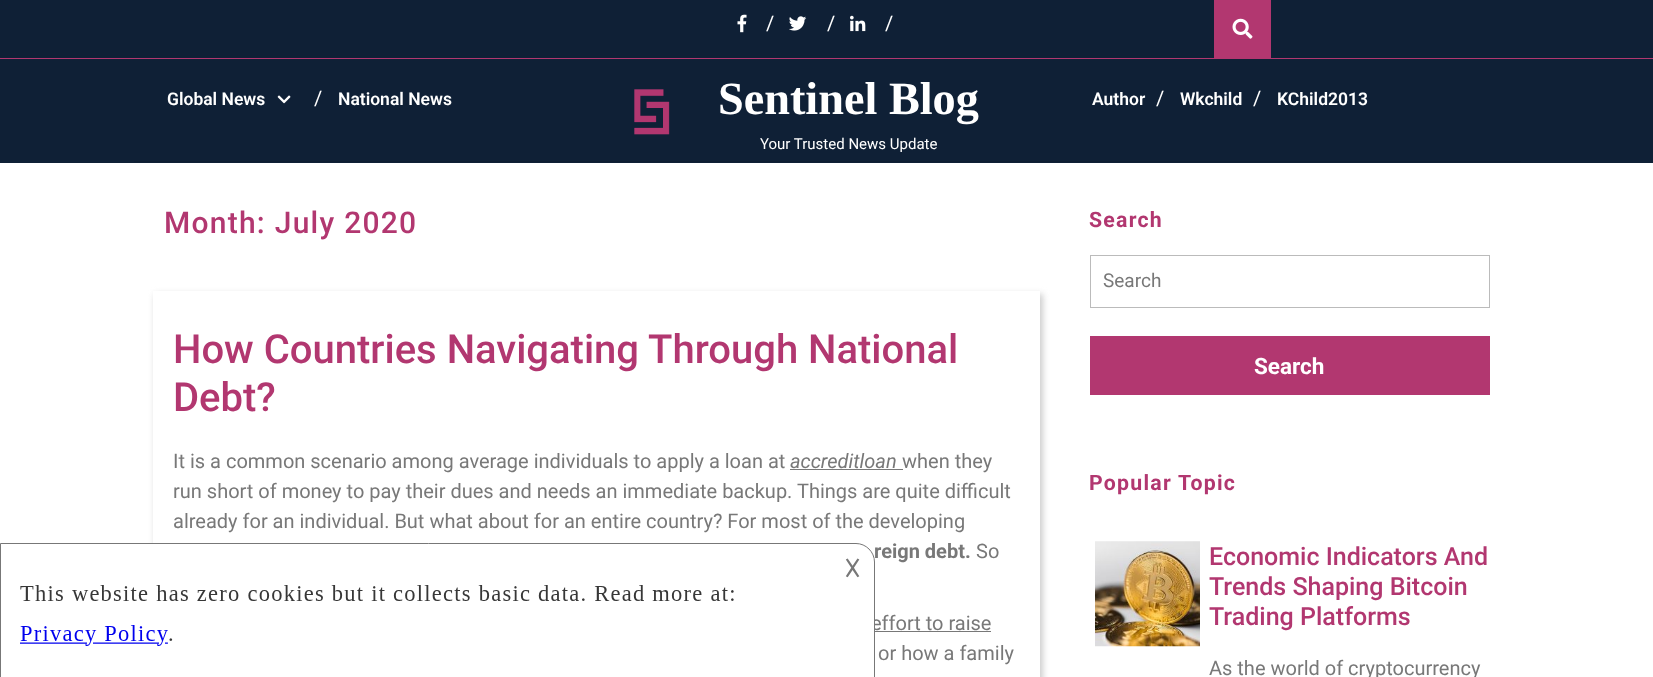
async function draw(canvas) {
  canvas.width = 1653
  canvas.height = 677
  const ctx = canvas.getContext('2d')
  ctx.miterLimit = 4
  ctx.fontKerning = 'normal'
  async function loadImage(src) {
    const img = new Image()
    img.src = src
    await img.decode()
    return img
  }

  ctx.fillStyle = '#fff'
  ctx.fillRect(0, 0, 1653, 677)
  ctx.fillStyle = '#0f2036'
  ctx.fillRect(0, 0, 1653, 163)
  ctx.fillStyle = '#b23770'
  ctx.fillRect(0, 58, 1653, 1)
  ctx.drawImage(await loadImage('image0.png'), 737, 14, 10, 19)
  ctx.font = '20px Roboto'
  ctx.fillStyle = '#fff'
  ctx.fillText('/', 766, 30)
  ctx.drawImage(await loadImage('image1.png'), 789, 16, 18, 15)
  ctx.fillText('/', 827, 30)
  ctx.drawImage(await loadImage('image2.png'), 850, 15, 16, 17)
  ctx.fillText('/', 885, 30)
  ctx.fillStyle = '#b23770'
  ctx.fillRect(1214, 0, 57, 58)
  ctx.drawImage(await loadImage('image3.png'), 1232, 18, 21, 21)
  ctx.font = '600 17.5px Roboto'
  ctx.fillStyle = '#fff'
  ctx.fillText('Global News', 167, 105)
  ctx.drawImage(await loadImage('image4.png'), 277, 95, 14, 9)
  ctx.font = '20px Roboto'
  ctx.fillText('/', 314, 105)
  ctx.font = '600 17.5px Roboto'
  ctx.fillText('National News', 338, 105)
  ctx.drawImage(await loadImage('image5.png'), 634, 89, 36, 46)
  ctx.font = 'bold 46.25px Liberation Serif'
  ctx.fillText('Sentinel Blog', 718, 114)
  ctx.font = '15px Roboto'
  ctx.fillText('Your Trusted News Update', 760, 149)
  ctx.font = '600 17.5px Roboto'
  ctx.fillText('Author', 1092, 105)
  ctx.font = '20px Roboto'
  ctx.fillText('/', 1156, 105)
  ctx.font = '600 17.5px Roboto'
  ctx.fillText('Wkchild', 1180, 105)
  ctx.font = '20px Roboto'
  ctx.fillText('/', 1253, 105)
  ctx.font = '600 17.5px Roboto'
  ctx.fillText('KChild2013', 1277, 105)
  ctx.fillStyle = '#0e1d31'
  ctx.fillRect(134, 161, 1387, 1)
  ctx.letterSpacing = '1.25px'
  ctx.font = '500 30px Roboto'
  ctx.fillStyle = '#b23770'
  ctx.fillText('Month: July 2020', 164, 233)
  ctx.save()
  ctx.beginPath()
  ctx.moveTo(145, 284)
  ctx.lineTo(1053, 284)
  ctx.lineTo(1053, 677)
  ctx.lineTo(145, 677)
  ctx.closePath()
  ctx.moveTo(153, 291)
  ctx.lineTo(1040, 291)
  ctx.lineTo(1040, 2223)
  ctx.lineTo(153, 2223)
  ctx.closePath()
  ctx.clip('evenodd')
  ctx.fillStyle = '#cdcdcd'
  ctx.filter = 'blur(3px)'
  ctx.beginPath()
  ctx.rect(155, 294, 888, 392)
  ctx.fill()
  ctx.filter = 'none'
  ctx.restore()
  ctx.letterSpacing = '0px'
  ctx.font = '500 40px Roboto'
  ctx.fillText('How Countries Navigating Through National', 173, 363)
  ctx.fillText('Debt?', 173, 411)
  ctx.font = '20px Roboto'
  ctx.fillStyle = '#787878'
  ctx.fillText('It is a common scenario among average individuals to apply a loan at', 173, 468)
  ctx.font = 'italic 20px Roboto'
  ctx.fillText('accreditloan', 790, 468)
  ctx.fillRect(790, 469, 113, 1)
  ctx.font = '20px Roboto'
  ctx.fillText('when they', 902, 468)
  ctx.fillText('run short of money to pay their dues and needs an immediate backup. Things are quite difficult', 173, 498)
  ctx.fillText('already for an individual. But what about for an entire country? For most of the developing', 173, 528)
  ctx.font = 'bold 20px Roboto'
  ctx.fillText('reign debt.', 874, 558)
  ctx.font = '20px Roboto'
  ctx.fillText('So', 976, 558)
  ctx.fillText('effort to raise', 871, 630)
  ctx.fillRect(875, 631, 116, 1)
  ctx.fillText('or how a family', 878, 660)
  ctx.letterSpacing = '1.25px'
  ctx.font = 'bold 21.25px Roboto'
  ctx.fillStyle = '#b23770'
  ctx.fillText('Search', 1089, 227)
  ctx.strokeStyle = '#bbb'
  ctx.strokeRect(1090.5, 255.5, 399, 52)
  ctx.letterSpacing = '0px'
  ctx.font = '19px Roboto'
  ctx.fillStyle = '#787878'
  ctx.fillText('Search', 1103, 287)
  ctx.fillStyle = '#b23770'
  ctx.fillRect(1090, 336, 400, 59)
  ctx.font = 'bold 22.5px Roboto'
  ctx.fillStyle = '#fff'
  ctx.fillText('Search', 1254, 374)
  ctx.letterSpacing = '1.25px'
  ctx.font = 'bold 21.25px Roboto'
  ctx.fillStyle = '#b23770'
  ctx.fillText('Popular Topic', 1089, 490)
  ctx.drawImage(await loadImage('image6.png'), 1095, 541, 105, 106)
  ctx.letterSpacing = '0px'
  ctx.font = '500 25px Roboto'
  ctx.fillText('Economic Indicators And', 1209, 565)
  ctx.fillText('Trends Shaping Bitcoin', 1209, 595)
  ctx.fillText('Trading Platforms', 1209, 625)
  ctx.font = '20px Roboto'
  ctx.fillStyle = '#787878'
  ctx.fillText('As the world of cryptocurrency', 1209, 675)
  ctx.fillStyle = '#fff'
  ctx.beginPath()
  ctx.moveTo(0.5, 543.5)
  ctx.lineTo(856, 543.5)
  ctx.bezierCurveTo(866, 543.5, 874.5, 552, 874.5, 562)
  ctx.lineTo(874.5, 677.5)
  ctx.lineTo(0.5, 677.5)
  ctx.closePath()
  ctx.fill()
  ctx.strokeStyle = '#777'
  ctx.stroke()
  ctx.font = '25px DejaVu Sans'
  ctx.fillStyle = '#787878'
  ctx.fillText('𐌢', 844, 577)
  ctx.drawImage(await loadImage('image7.png'), 20, 585, 714, 61)
}

draw(document.querySelector('canvas'))
